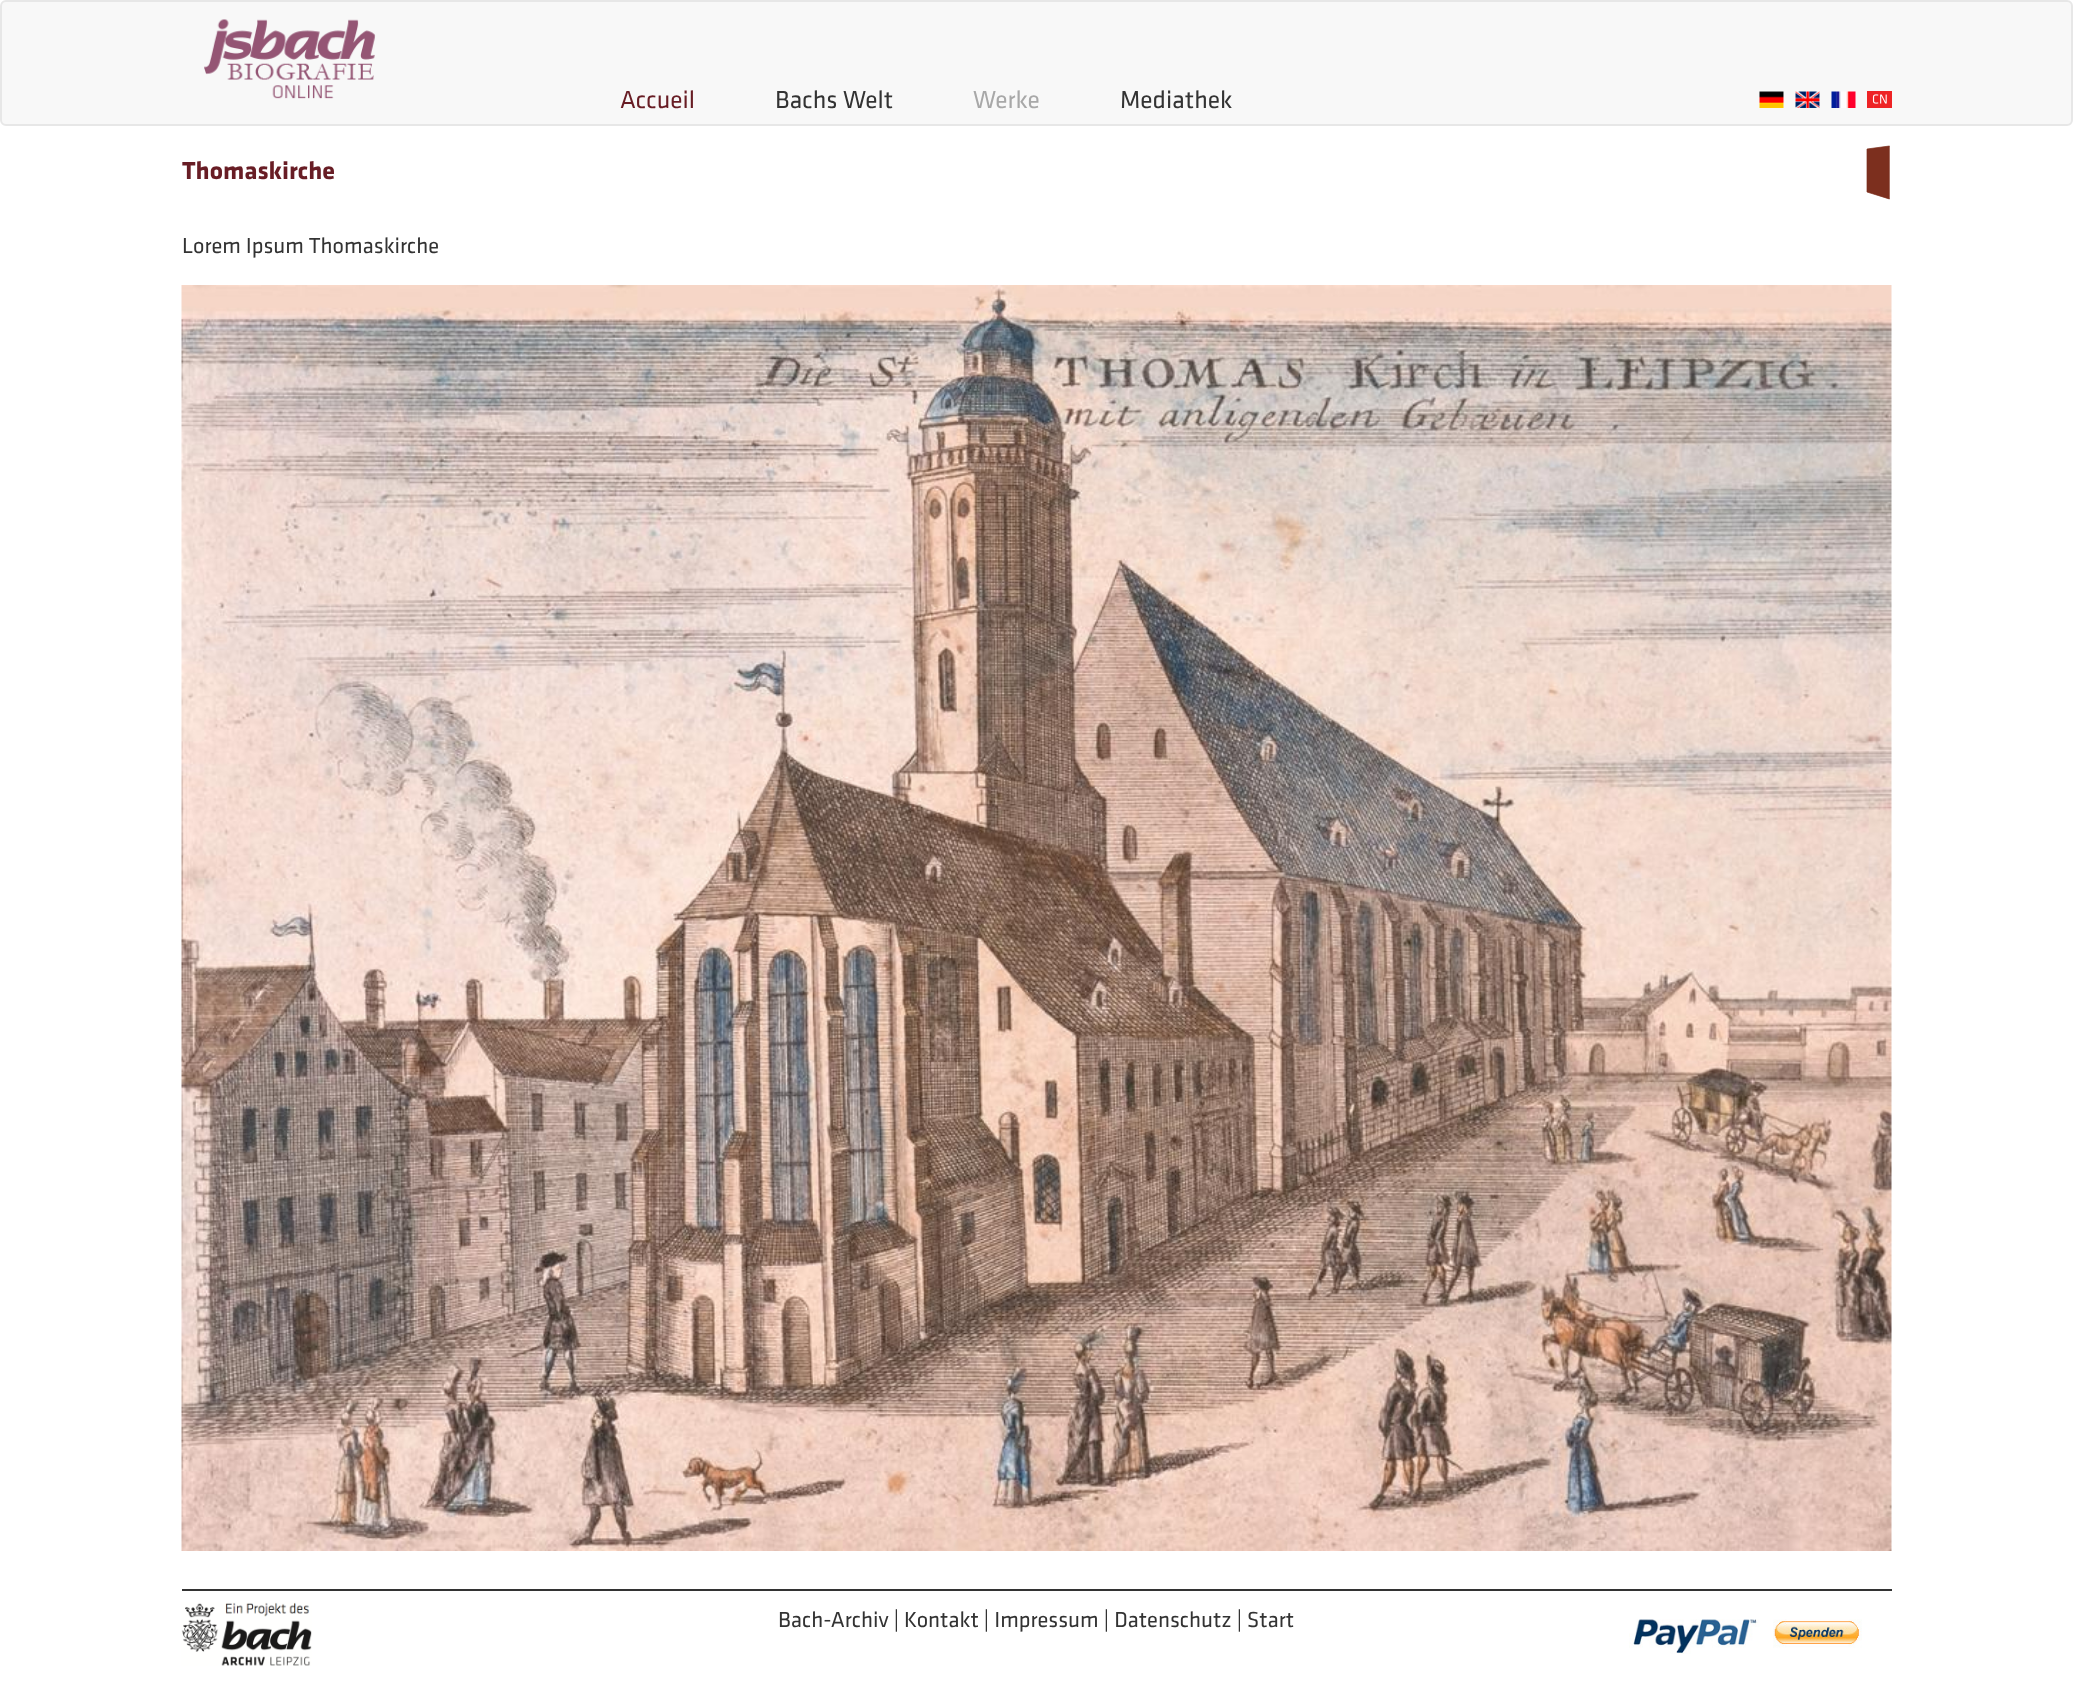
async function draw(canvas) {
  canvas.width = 2073
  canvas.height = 1681
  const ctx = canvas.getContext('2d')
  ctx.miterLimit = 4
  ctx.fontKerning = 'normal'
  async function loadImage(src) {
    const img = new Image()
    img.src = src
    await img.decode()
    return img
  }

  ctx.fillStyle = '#fff'
  ctx.fillRect(0, 0, 2073, 1681)
  ctx.fillStyle = '#f8f8f8'
  ctx.beginPath()
  ctx.roundRect(1, 1, 2071, 124, 5)
  ctx.fill()
  ctx.strokeStyle = '#e7e7e7'
  ctx.lineWidth = 2
  ctx.stroke()
  ctx.drawImage(await loadImage('image0.png'), 204, 19, 172, 80)
  ctx.font = '25.5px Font'
  ctx.fillStyle = '#681d25'
  ctx.fillText('Accueil', 620, 108)
  ctx.fillStyle = '#333'
  ctx.fillText('Bachs Welt', 775, 108)
  ctx.fillStyle = '#a8a8a8'
  ctx.fillText('Werke', 973, 108)
  ctx.fillStyle = '#333'
  ctx.fillText('Mediathek', 1120, 108)
  ctx.drawImage(await loadImage('image1.png'), 1759, 91, 25, 17)
  ctx.drawImage(await loadImage('image2.png'), 1795, 91, 25, 17)
  ctx.drawImage(await loadImage('image3.png'), 1831, 91, 25, 17)
  ctx.fillStyle = '#ee2325'
  ctx.fillRect(1867, 91, 25, 17)
  ctx.drawImage(await loadImage('image4.png'), 1872, 94, 15, 10)
  ctx.font = 'bold 25.5px Font'
  ctx.fillStyle = '#681d25'
  ctx.fillText('Thomaskirche', 182, 179)
  ctx.fillStyle = '#7c2f1e'
  ctx.beginPath()
  ctx.moveTo(1889, 146)
  ctx.lineTo(1867, 149)
  ctx.lineTo(1867, 192)
  ctx.lineTo(1889, 199)
  ctx.closePath()
  ctx.fill()
  ctx.beginPath()
  ctx.moveTo(1889.5, 146)
  ctx.lineTo(1867, 149)
  ctx.lineTo(1867, 192)
  ctx.lineTo(1889.5, 199)
  ctx.closePath()
  ctx.strokeStyle = '#7c2f1e'
  ctx.lineWidth = 0.7
  ctx.stroke()
  ctx.font = '22.5px Font'
  ctx.fillStyle = '#333'
  ctx.fillText('Lorem Ipsum Thomaskirche', 182, 253)
  ctx.drawImage(await loadImage('image5.png'), 181, 285, 1711, 1266)
  ctx.fillRect(182, 1589, 1710, 2)
  ctx.drawImage(await loadImage('image6.png'), 181, 1602, 131, 64)
  ctx.fillText('Bach-Archiv | Kontakt | Impressum | Datenschutz | Start', 778, 1627)
  ctx.drawImage(await loadImage('image7.png'), 1629, 1619, 233, 35)
}

draw(document.querySelector('canvas'))
